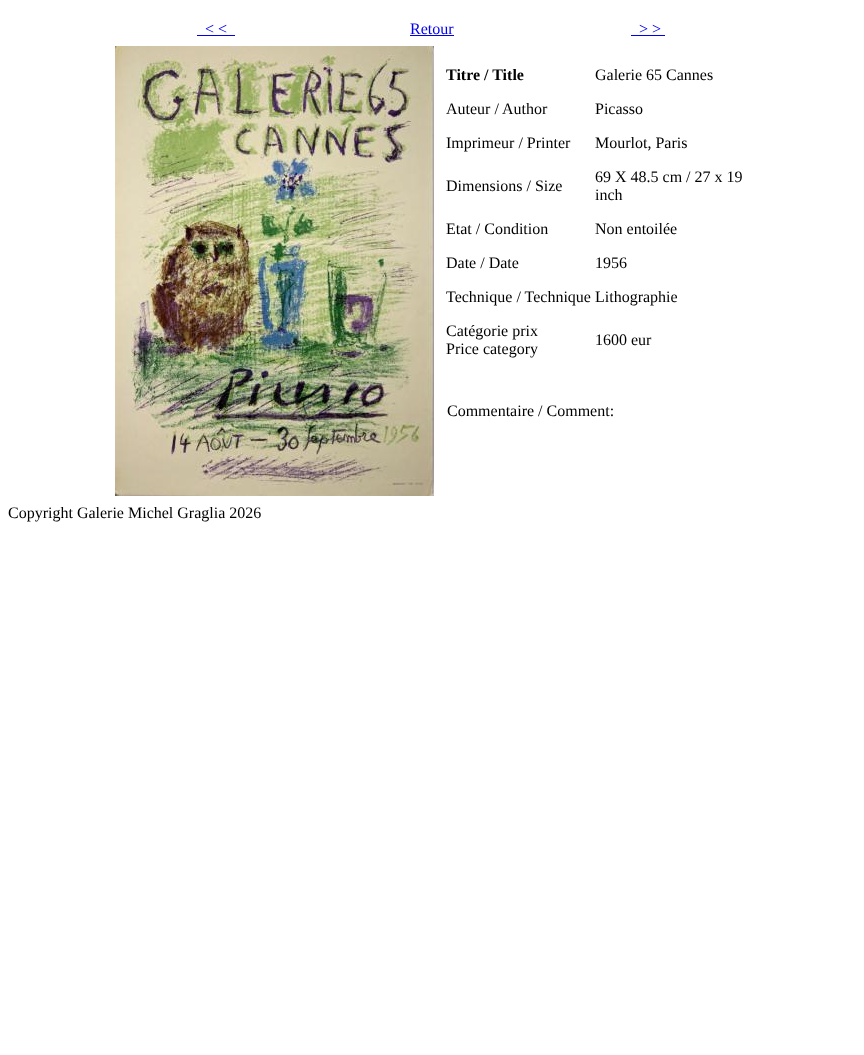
async function draw(canvas) {
  canvas.width = 864
  canvas.height = 1055
  const ctx = canvas.getContext('2d')
  ctx.miterLimit = 4
  ctx.fontKerning = 'normal'
  async function loadImage(src) {
    const img = new Image()
    img.src = src
    await img.decode()
    return img
  }

  ctx.fillStyle = '#fff'
  ctx.fillRect(0, 0, 864, 1055)
  ctx.font = '16px Liberation Serif'
  ctx.fillStyle = '#00e'
  ctx.fillText('< <', 205, 34)
  ctx.fillRect(197, 35, 38, 1)
  ctx.fillText('Retour', 410, 34)
  ctx.fillRect(410, 35, 44, 1)
  ctx.fillText('> >', 639, 34)
  ctx.fillRect(631, 35, 34, 1)
  ctx.drawImage(await loadImage('image0.png'), 115, 46, 319, 450)
  ctx.font = 'bold 16px Liberation Serif'
  ctx.fillStyle = '#000'
  ctx.fillText('Titre / Title', 446, 80)
  ctx.font = '16px Liberation Serif'
  ctx.fillText('Galerie 65 Cannes', 595, 80)
  ctx.fillText('Auteur / Author', 446, 114)
  ctx.fillText('Picasso', 595, 114)
  ctx.fillText('Imprimeur / Printer', 446, 148)
  ctx.fillText('Mourlot, Paris', 595, 148)
  ctx.fillText('Dimensions / Size', 446, 191)
  ctx.fillText('69 X 48.5 cm / 27 x 19', 595, 182)
  ctx.fillText('inch', 595, 200)
  ctx.fillText('Etat / Condition', 446, 234)
  ctx.fillText('Non entoilée', 595, 234)
  ctx.fillText('Date / Date', 446, 268)
  ctx.fillText('1956', 595, 268)
  ctx.fillText('Technique / Technique Lithographie', 446, 302)
  ctx.fillText('Catégorie prix', 446, 336)
  ctx.fillText('Price category', 446, 354)
  ctx.fillText('1600 eur', 595, 345)
  ctx.fillText('Commentaire / Comment:', 447, 416)
  ctx.fillText('Copyright Galerie Michel Graglia 2026', 8, 518)
}

draw(document.querySelector('canvas'))
